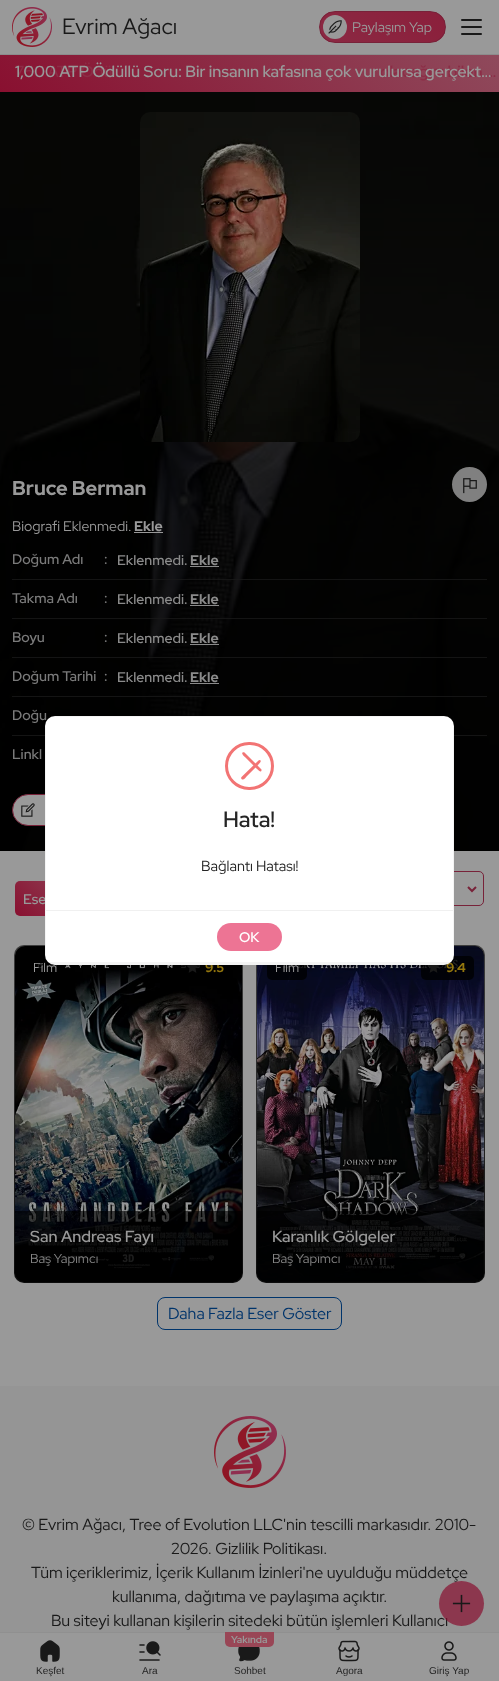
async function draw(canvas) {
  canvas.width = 499
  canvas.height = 1681
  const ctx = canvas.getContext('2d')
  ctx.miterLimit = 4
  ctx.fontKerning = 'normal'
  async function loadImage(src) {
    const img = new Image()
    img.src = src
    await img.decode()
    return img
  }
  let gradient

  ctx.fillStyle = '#959595'
  ctx.fillRect(0, 0, 499, 1681)
  ctx.fillStyle = '#999'
  ctx.fillRect(0, 0, 499, 54)
  ctx.fillStyle = '#8c8c8c'
  ctx.fillRect(0, 54, 499, 1)
  ctx.drawImage(await loadImage('image0.png'), 12, 7, 40, 40)
  ctx.font = '22px Red Hat Display'
  ctx.fillStyle = '#191919'
  ctx.fillText('Evrim Ağacı', 62, 34)
  ctx.save()
  ctx.beginPath()
  ctx.roundRect(319, 11, 127, 32, 16)
  ctx.clip()
  gradient = ctx.createLinearGradient(344, 66, 421, -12)
  gradient.addColorStop(0, '#8b2943')
  gradient.addColorStop(1, '#8b1f3b')
  ctx.fillStyle = gradient
  ctx.fillRect(320, 12, 125, 30)
  ctx.restore()
  ctx.beginPath()
  ctx.roundRect(319.5, 11.5, 126, 31, 15.5)
  ctx.strokeStyle = '#782239'
  ctx.stroke()
  ctx.fillStyle = '#999'
  ctx.beginPath()
  ctx.arc(335, 27, 12, 0, 2 * Math.PI)
  ctx.fill()
  ctx.drawImage(await loadImage('image1.png'), 328, 20, 14, 14)
  ctx.font = '14px Red Hat Display'
  ctx.fillText('Paylaşım Yap', 352, 32)
  ctx.font = '16px Red Hat Display'
  ctx.fillStyle = '#191919'
  ctx.fillText('Tüm içeriklerimiz, İçerik Kullanım İzinleri\'ne uyulduğu müddetçe', 31, 1578)
  ctx.fillText('Bu siteyi kullanan kişilerin sitedeki bütün işlemleri Kullanıcı', 51, 1626)
  ctx.fillStyle = '#891030b3'
  ctx.beginPath()
  ctx.arc(461.5, 1603.5, 22.5, 0, 2 * Math.PI)
  ctx.fill()
  ctx.drawImage(await loadImage('image2.png'), 452, 1594, 19, 19)
  ctx.fillStyle = '#191919'
  ctx.beginPath()
  ctx.roundRect(461, 19, 21, 2, 1)
  ctx.fill()
  ctx.beginPath()
  ctx.roundRect(461, 26, 21, 2, 1)
  ctx.fill()
  ctx.beginPath()
  ctx.roundRect(461, 33, 21, 2, 1)
  ctx.fill()
  gradient = ctx.createLinearGradient(115, 207, 384, -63)
  gradient.addColorStop(0, '#891030')
  gradient.addColorStop(1, '#8f4a5c')
  ctx.fillStyle = gradient
  ctx.fillRect(0, 55, 499, 37)
  ctx.font = '500 16px Red Hat Display'
  ctx.fillStyle = '#8c2d46'
  ctx.fillText('750 ATP Ödül', 15, 77)
  ctx.fillText('olacağını bilen …', 380, 77)
  ctx.fillStyle = '#999'
  ctx.fillText('1,000 ATP Ödüllü Soru: Bir insanın kafasına çok vurulursa gerçekt…', 15, 77)
  ctx.drawImage(await loadImage('image3.png'), 0, 92, 499, 759)
  ctx.drawImage(await loadImage('image4.png'), 140, 112, 220, 330)
  ctx.font = 'bold 20px Red Hat Display'
  ctx.fillText('Bruce Berman', 12, 495)
  ctx.fillStyle = '#999999d6'
  ctx.beginPath()
  ctx.arc(469.5, 484.5, 17.5, 0, 2 * Math.PI)
  ctx.fill()
  ctx.drawImage(await loadImage('image5.png'), 463, 478, 14, 16)
  ctx.font = '14px Red Hat Display'
  ctx.fillStyle = '#999'
  ctx.fillText('Biografi Eklenmedi.', 12, 531)
  ctx.font = 'bold 14px Red Hat Display'
  ctx.fillText('Ekle', 134, 531)
  ctx.fillRect(134, 532, 29, 1)
  ctx.fillStyle = '#191919cc'
  ctx.fillRect(12, 579, 475, 1)
  ctx.font = '500 14px Red Hat Display'
  ctx.fillStyle = '#7a7a7a'
  ctx.fillText('Doğum Adı', 12, 564)
  ctx.fillText(':', 104, 564)
  ctx.fillStyle = '#8b8b8b'
  ctx.fillText('Eklenmedi.', 117, 565)
  ctx.font = 'bold 14px Red Hat Display'
  ctx.fillText('Ekle', 190, 565)
  ctx.fillStyle = '#999999e6'
  ctx.fillRect(190, 566, 29, 1)
  ctx.fillStyle = '#191919cc'
  ctx.fillRect(12, 618, 475, 1)
  ctx.font = '500 14px Red Hat Display'
  ctx.fillStyle = '#7a7a7a'
  ctx.fillText('Takma Adı', 12, 603)
  ctx.fillText(':', 104, 603)
  ctx.fillStyle = '#8b8b8b'
  ctx.fillText('Eklenmedi.', 117, 604)
  ctx.font = 'bold 14px Red Hat Display'
  ctx.fillText('Ekle', 190, 604)
  ctx.fillStyle = '#999999e6'
  ctx.fillRect(190, 605, 29, 1)
  ctx.fillStyle = '#191919cc'
  ctx.fillRect(12, 657, 475, 1)
  ctx.font = '500 14px Red Hat Display'
  ctx.fillStyle = '#7a7a7a'
  ctx.fillText('Boyu', 12, 642)
  ctx.fillText(':', 104, 642)
  ctx.fillStyle = '#8b8b8b'
  ctx.fillText('Eklenmedi.', 117, 643)
  ctx.font = 'bold 14px Red Hat Display'
  ctx.fillText('Ekle', 190, 643)
  ctx.fillStyle = '#999999e6'
  ctx.fillRect(190, 644, 29, 1)
  ctx.fillStyle = '#191919cc'
  ctx.fillRect(12, 696, 475, 1)
  ctx.font = '500 14px Red Hat Display'
  ctx.fillStyle = '#7a7a7a'
  ctx.fillText('Doğum Tarihi', 12, 681)
  ctx.fillText(':', 104, 681)
  ctx.fillStyle = '#8b8b8b'
  ctx.fillText('Eklenmedi.', 117, 682)
  ctx.font = 'bold 14px Red Hat Display'
  ctx.fillText('Ekle', 190, 682)
  ctx.fillStyle = '#999999e6'
  ctx.fillRect(190, 683, 29, 1)
  ctx.fillStyle = '#191919cc'
  ctx.fillRect(12, 735, 475, 1)
  ctx.font = '500 14px Red Hat Display'
  ctx.fillStyle = '#7a7a7a'
  ctx.fillText('Doğu', 12, 720)
  ctx.fillText('Linkl', 12, 759)
  ctx.fillStyle = '#999'
  ctx.beginPath()
  ctx.roundRect(12.5, 794.5, 209, 31, 15.5)
  ctx.fill()
  ctx.stroke()
  ctx.drawImage(await loadImage('image6.png'), 21, 803, 14, 14)
  ctx.fillRect(0, 851, 499, 535)
  gradient = ctx.createLinearGradient(27, 928, 86, 869)
  gradient.addColorStop(0, '#891030')
  gradient.addColorStop(1, '#8f4a5c')
  ctx.fillStyle = gradient
  ctx.beginPath()
  ctx.roundRect(15, 881, 83, 35, 5)
  ctx.fill()
  ctx.fillStyle = '#999'
  ctx.fillText('Ese', 23, 904)
  ctx.beginPath()
  ctx.roundRect(302.5, 871.5, 181, 34, 4.5)
  ctx.stroke()
  ctx.beginPath()
  ctx.moveTo(468, 887)
  ctx.lineTo(472, 891)
  ctx.lineTo(476, 887)
  ctx.lineWidth = 2
  ctx.stroke()
  ctx.drawImage(await loadImage('image7.png'), 15, 946, 227, 336)
  gradient = ctx.createLinearGradient(129, 1283, 129, 945)
  gradient.addColorStop(0, '#000000eb')
  gradient.addColorStop(1, '#00000099')
  ctx.fillStyle = gradient
  ctx.beginPath()
  ctx.roundRect(14, 945, 229, 338, 10)
  ctx.fill()
  ctx.drawImage(await loadImage('image8.png'), 15, 958, 227, 319)
  ctx.fillStyle = '#000000bf'
  ctx.beginPath()
  ctx.roundRect(25, 956, 40, 24, 5)
  ctx.fill()
  ctx.font = '13px Red Hat Display'
  ctx.fillStyle = '#999'
  ctx.fillText('Film', 33, 972)
  ctx.fillStyle = '#000000bf'
  ctx.beginPath()
  ctx.roundRect(180, 956, 52, 24, 5)
  ctx.fill()
  ctx.drawImage(await loadImage('image9.png'), 186, 965, 13, 8)
  ctx.font = 'bold 13px Red Hat Display'
  ctx.fillStyle = '#93760e'
  ctx.fillText('9.5', 205, 972)
  ctx.fillStyle = '#00000099'
  ctx.beginPath()
  ctx.roundRect(15, 1211, 227, 71, [0, 0, 10, 10])
  ctx.fill()
  ctx.font = '500 16px Red Hat Display'
  ctx.fillStyle = '#999'
  ctx.fillText('San Andreas Fayı', 30, 1242)
  ctx.font = '13px Red Hat Display'
  ctx.fillStyle = '#838383'
  ctx.fillText('Baş Yapımcı', 30, 1263)
  ctx.drawImage(await loadImage('image10.png'), 257, 946, 227, 336)
  gradient = ctx.createLinearGradient(371, 1283, 371, 945)
  gradient.addColorStop(0, '#000000eb')
  gradient.addColorStop(1, '#00000099')
  ctx.fillStyle = gradient
  ctx.beginPath()
  ctx.roundRect(256, 945, 229, 338, 10)
  ctx.fill()
  ctx.drawImage(await loadImage('image11.png'), 257, 946, 227, 336)
  ctx.fillStyle = '#000000bf'
  ctx.beginPath()
  ctx.roundRect(267, 956, 40, 24, 5)
  ctx.fill()
  ctx.fillStyle = '#999'
  ctx.fillText('Film', 275, 972)
  ctx.fillStyle = '#000000bf'
  ctx.beginPath()
  ctx.roundRect(421, 956, 53, 24, 5)
  ctx.fill()
  ctx.drawImage(await loadImage('image12.png'), 427, 965, 13, 8)
  ctx.font = 'bold 13px Red Hat Display'
  ctx.fillStyle = '#93760e'
  ctx.fillText('9.4', 446, 972)
  ctx.fillStyle = '#00000099'
  ctx.beginPath()
  ctx.roundRect(257, 1211, 227, 71, [0, 0, 10, 10])
  ctx.fill()
  ctx.font = '500 16px Red Hat Display'
  ctx.fillStyle = '#999'
  ctx.fillText('Karanlık Gölgeler', 272, 1242)
  ctx.font = '13px Red Hat Display'
  ctx.fillStyle = '#838383'
  ctx.fillText('Baş Yapımcı', 272, 1263)
  ctx.beginPath()
  ctx.roundRect(157.5, 1297.5, 184, 32, 7.5)
  ctx.strokeStyle = '#00346b'
  ctx.lineWidth = 1
  ctx.stroke()
  ctx.font = '16px Red Hat Display'
  ctx.fillStyle = '#00346b'
  ctx.fillText('Daha Fazla Eser Göster', 168, 1319)
  ctx.fillStyle = '#fff'
  ctx.beginPath()
  ctx.roundRect(45, 716, 409, 249, 10)
  ctx.fill()
  ctx.strokeStyle = '#2929290d'
  ctx.strokeRect(45.5, 716.5, 408, 248)
  ctx.fillStyle = '#2929290d'
  ctx.fillRect(50, 963, 399, 1)
  ctx.beginPath()
  ctx.roundRect(226.5, 743.5, 46, 45, 22.5)
  ctx.strokeStyle = '#f27474'
  ctx.lineWidth = 3
  ctx.stroke()
  ctx.fillStyle = '#f27474'
  ctx.beginPath()
  ctx.moveTo(244.5, 752.5)
  ctx.lineTo(261.5, 769.5)
  ctx.lineTo(261.5, 770.5)
  ctx.bezierCurveTo(261, 773, 258.5, 770, 256.5, 768.5)
  ctx.lineTo(245.5, 757.5)
  ctx.bezierCurveTo(245, 757, 241, 754, 242.5, 752.5)
  ctx.bezierCurveTo(243, 752, 244, 752, 244.5, 752.5)
  ctx.closePath()
  ctx.fill()
  ctx.beginPath()
  ctx.moveTo(241.5, 777)
  ctx.lineTo(258.5, 760.5)
  ctx.lineTo(259.5, 760)
  ctx.bezierCurveTo(262.5, 760.5, 259.5, 763.5, 257.5, 765.5)
  ctx.lineTo(246.5, 776.5)
  ctx.bezierCurveTo(246, 777, 243.5, 781, 241.5, 779)
  ctx.bezierCurveTo(241, 778.5, 241, 777.5, 241.5, 777)
  ctx.closePath()
  ctx.fill()
  ctx.font = '600 22px "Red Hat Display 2"'
  ctx.fillStyle = '#252525'
  ctx.fillText('Hata!', 223, 827)
  ctx.font = '14.5px Red Hat Display'
  ctx.fillText('Bağlantı Hatası!', 201, 871)
  ctx.fillStyle = '#f0f0f0'
  ctx.fillRect(46, 910, 407, 1)
  ctx.fillStyle = '#2929290d'
  ctx.fillRect(46, 962, 407, 1)
  ctx.fillStyle = '#ed7494'
  ctx.beginPath()
  ctx.roundRect(217, 923, 65, 28, 14)
  ctx.fill()
  ctx.font = '500 14px Red Hat Display'
  ctx.fillStyle = '#fff'
  ctx.fillText('OK', 239, 942)
  ctx.drawImage(await loadImage('image13.png'), 214, 1416, 72, 72)
  ctx.font = '16px Red Hat Display'
  ctx.fillStyle = '#191919'
  ctx.fillText('© Evrim Ağacı, Tree of Evolution LLC\'nin tescilli markasıdır. 2010-', 22, 1530)
  ctx.fillText('2026. Gizlilik Politikası.', 171, 1554)
  ctx.fillText('kullanıma, dağıtıma ve paylaşıma açıktır.', 112, 1602)
  ctx.fillStyle = '#999'
  ctx.fillRect(0, 1633, 499, 48)
  ctx.fillStyle = '#909090'
  ctx.fillRect(0, 1632, 499, 1)
  ctx.drawImage(await loadImage('image14.png'), 40, 1640, 20, 22)
  ctx.font = '10px Liberation Sans'
  ctx.fillStyle = '#252525'
  ctx.fillText('Keşfet', 36, 1674)
  ctx.drawImage(await loadImage('image15.png'), 139, 1641, 22, 20)
  ctx.fillText('Ara', 142, 1674)
  ctx.fillStyle = '#994656'
  ctx.beginPath()
  ctx.roundRect(225, 1632, 49, 15, [0, 0, 5, 5])
  ctx.fill()
  ctx.font = '600 10px Red Hat Display'
  ctx.fillStyle = '#999'
  ctx.fillText('Yakında', 231, 1643)
  ctx.drawImage(await loadImage('image16.png'), 238, 1647, 22, 15)
  ctx.font = '10px Liberation Sans'
  ctx.fillStyle = '#252525'
  ctx.fillText('Sohbet', 234, 1674)
  ctx.drawImage(await loadImage('image17.png'), 338, 1640, 22, 22)
  ctx.fillText('Agora', 336, 1674)
  ctx.drawImage(await loadImage('image18.png'), 441, 1641, 16, 20)
  ctx.fillText('Giriş Yap', 429, 1674)
}

draw(document.querySelector('canvas'))
